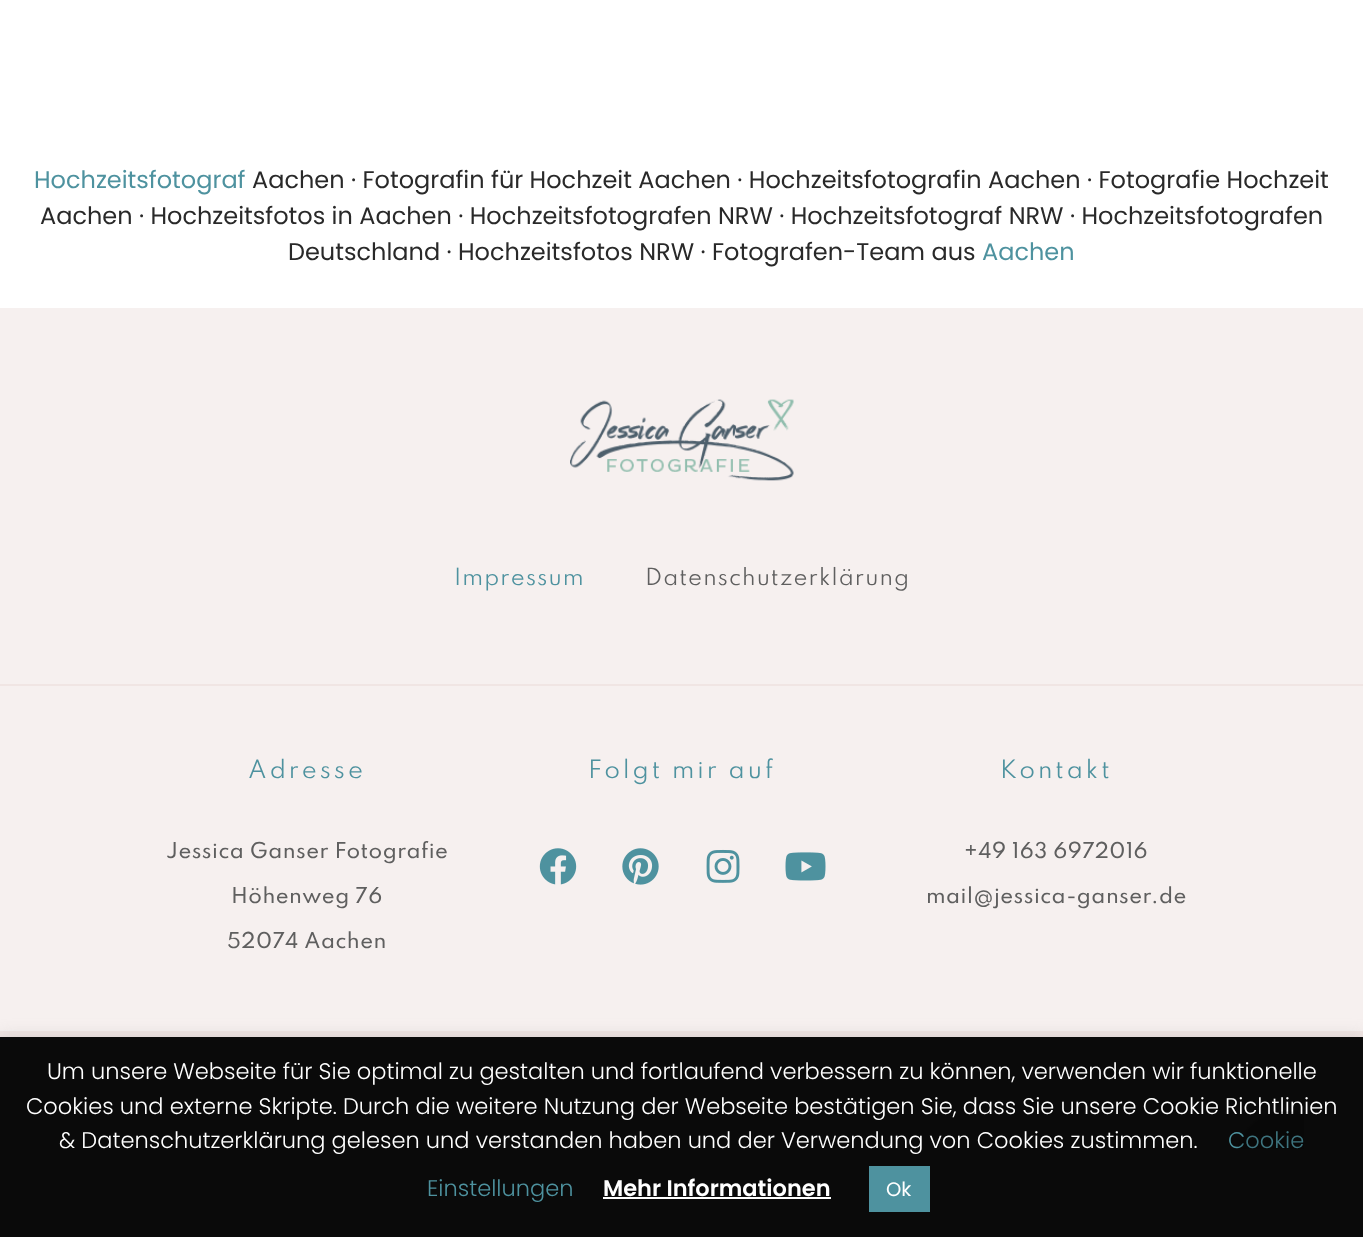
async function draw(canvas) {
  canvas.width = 1363
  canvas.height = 1237
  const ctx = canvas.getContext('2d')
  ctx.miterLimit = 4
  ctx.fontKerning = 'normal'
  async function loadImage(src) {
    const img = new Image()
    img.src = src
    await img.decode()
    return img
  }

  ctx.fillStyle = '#fff'
  ctx.fillRect(0, 0, 1363, 1237)
  ctx.font = '24px Poppins'
  ctx.fillStyle = '#4e929f'
  ctx.fillText('Hochzeitsfotograf', 34, 188)
  ctx.fillStyle = '#292929'
  ctx.fillText('Aachen · Fotografin für Hochzeit Aachen · Hochzeitsfotografin Aachen · Fotografie Hochzeit', 252, 188)
  ctx.fillText('Aachen · Hochzeitsfotos in Aachen · Hochzeitsfotografen NRW · Hochzeitsfotograf NRW · Hochzeitsfotografen', 40, 224)
  ctx.fillText('Deutschland · Hochzeitsfotos NRW · Fotografen-Team aus', 288, 260)
  ctx.fillStyle = '#4e929f'
  ctx.fillText('Aachen', 982, 260)
  ctx.fillStyle = '#f6f0ef'
  ctx.fillRect(0, 308, 1363, 723)
  ctx.fillStyle = '#f0e5e3'
  ctx.fillRect(0, 684, 1363, 2)
  ctx.drawImage(await loadImage('image0.png'), 570, 399, 224, 82)
  ctx.letterSpacing = '1.05px'
  ctx.font = '21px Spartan'
  ctx.fillStyle = '#4e929f'
  ctx.fillText('Impressum', 454, 585)
  ctx.fillStyle = '#5f5f5f'
  ctx.fillText('Datenschutzerklärung', 645, 585)
  ctx.letterSpacing = '3px'
  ctx.font = '22.5px Spartan'
  ctx.fillStyle = '#4e929f'
  ctx.fillText('Adresse', 248, 778)
  ctx.letterSpacing = '0.45px'
  ctx.font = '500 19.5px Spartan'
  ctx.fillStyle = '#5f5f5f'
  ctx.fillText('Jessica Ganser Fotografie', 166, 858)
  ctx.fillText('Höhenweg 76', 231, 903)
  ctx.fillText('52074 Aachen', 227, 948)
  ctx.letterSpacing = '3px'
  ctx.font = '22.5px Spartan'
  ctx.fillStyle = '#4e929f'
  ctx.fillText('Folgt mir auf', 588, 778)
  ctx.drawImage(await loadImage('image1.png'), 539, 848, 38, 37)
  ctx.drawImage(await loadImage('image2.png'), 622, 848, 37, 37)
  ctx.drawImage(await loadImage('image3.png'), 706, 849, 34, 34)
  ctx.drawImage(await loadImage('image4.png'), 785, 852, 41, 29)
  ctx.fillText('Kontakt', 1000, 778)
  ctx.letterSpacing = '0.45px'
  ctx.font = '500 19.5px Spartan'
  ctx.fillStyle = '#5f5f5f'
  ctx.fillText('+49 163 6972016', 964, 858)
  ctx.fillText('mail@jessica-ganser.de', 926, 903)
  ctx.fillStyle = '#f0e5e3'
  ctx.fillRect(0, 1031, 1363, 6)
  ctx.fillStyle = '#acabab4d'
  ctx.filter = 'blur(7.5px)'
  ctx.beginPath()
  ctx.rect(0, 1035, 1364, 201)
  ctx.fill()
  ctx.filter = 'none'
  ctx.fillStyle = '#0a0a0a'
  ctx.fillRect(0, 1037, 1363, 200)
  ctx.letterSpacing = '0px'
  ctx.font = '300 22.5px Poppins'
  ctx.fillStyle = '#fff'
  ctx.fillText('Um unsere Webseite für Sie optimal zu gestalten und fortlaufend verbessern zu können, verwenden wir funktionelle', 47, 1079)
  ctx.fillText('Cookies und externe Skripte. Durch die weitere Nutzung der Webseite bestätigen Sie, dass Sie unsere Cookie Richtlinien', 26, 1114)
  ctx.fillText('& Datenschutzerklärung gelesen und verstanden haben und der Verwendung von Cookies zustimmen.', 59, 1148)
  ctx.fillStyle = '#4e929f'
  ctx.fillText('Cookie', 1228, 1148)
  ctx.fillText('Einstellungen', 427, 1196)
  ctx.font = '600 22.5px Poppins'
  ctx.fillStyle = '#fff'
  ctx.fillText('Mehr Informationen', 603, 1196)
  ctx.fillRect(603, 1197, 228, 2)
  ctx.fillStyle = '#4e929f'
  ctx.fillRect(869, 1166, 61, 46)
  ctx.font = '19.5px Poppins'
  ctx.fillStyle = '#fff'
  ctx.fillText('Ok', 886, 1196)
  ctx.drawImage(await loadImage('image5.png'), 1238, 1111, 66, 38)
}

draw(document.querySelector('canvas'))
